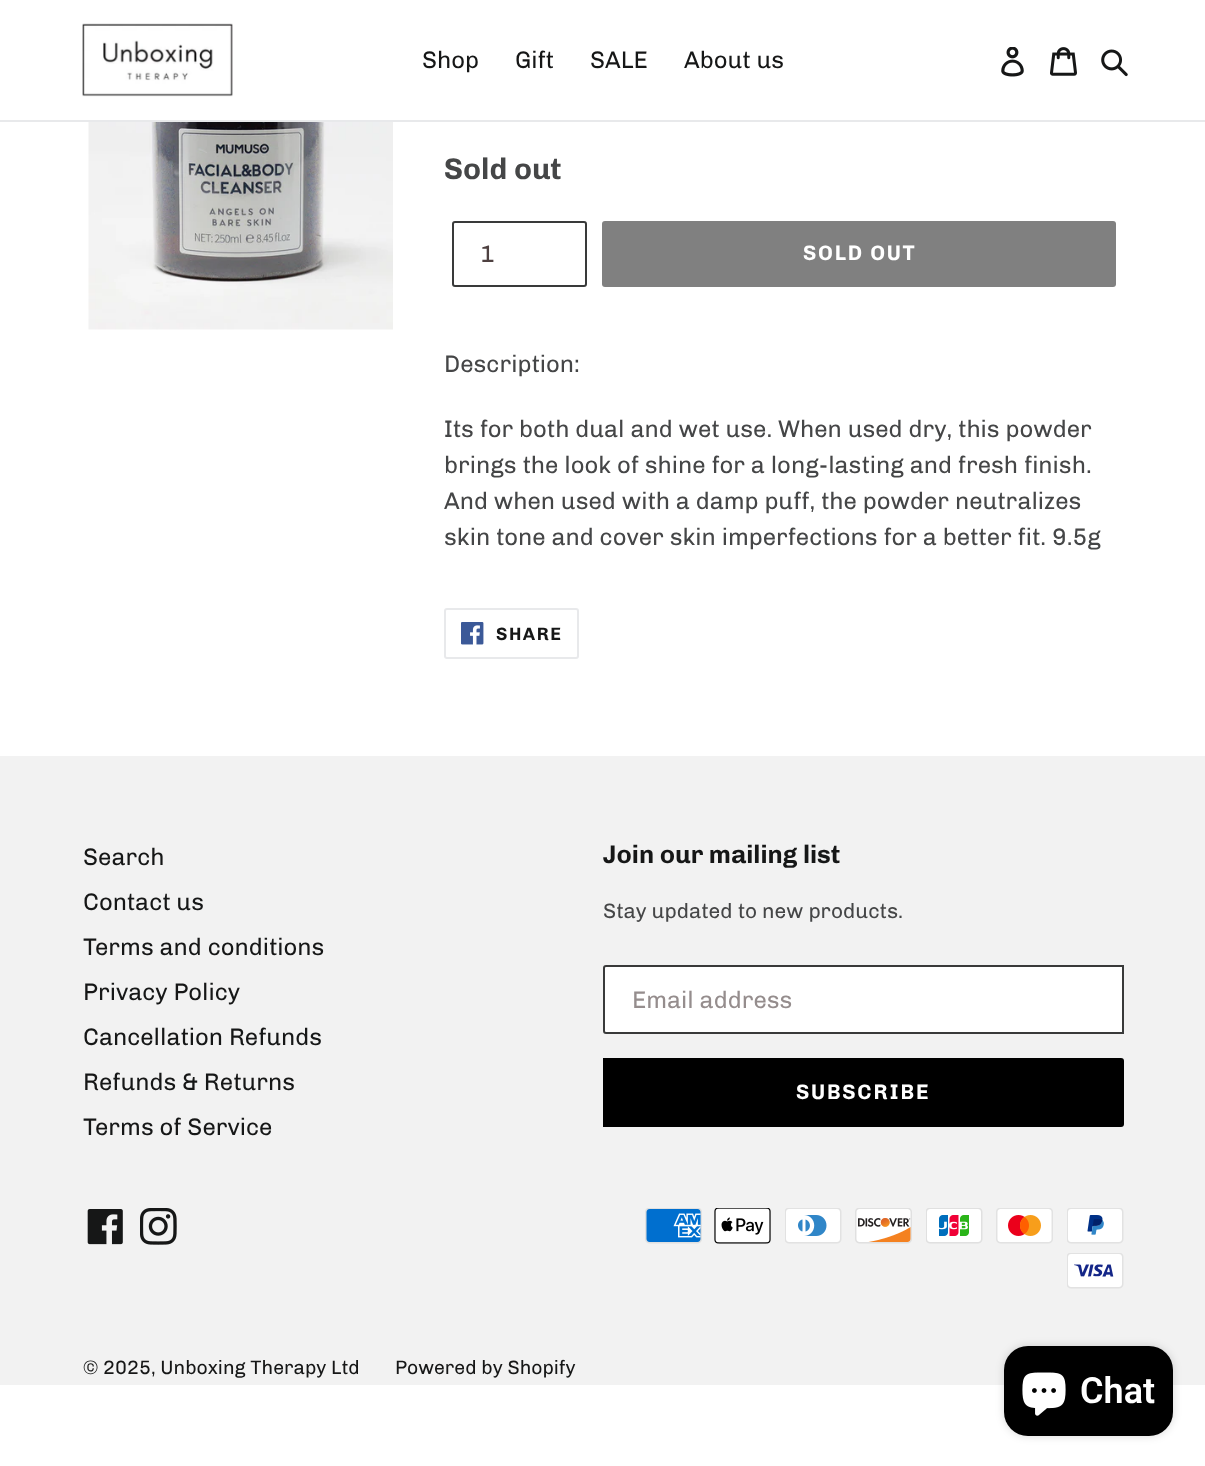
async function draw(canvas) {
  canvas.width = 1205
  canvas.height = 1466
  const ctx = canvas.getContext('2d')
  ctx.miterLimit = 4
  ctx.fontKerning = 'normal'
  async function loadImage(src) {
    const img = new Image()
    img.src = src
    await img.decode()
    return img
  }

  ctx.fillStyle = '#fff'
  ctx.fillRect(0, 0, 1205, 1466)
  ctx.fillStyle = '#e8e9eb'
  ctx.fillRect(0, 120, 1205, 2)
  ctx.drawImage(await loadImage('image0.png'), 82, 23, 151, 74)
  ctx.font = '24px "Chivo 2"'
  ctx.fillStyle = '#161717'
  ctx.fillText('Shop', 422, 68)
  ctx.fillText('Gift', 515, 68)
  ctx.fillText('SALE', 590, 68)
  ctx.fillText('About us', 684, 68)
  ctx.drawImage(await loadImage('image1.png'), 1001, 47, 23, 30)
  ctx.drawImage(await loadImage('image2.png'), 1050, 47, 27, 29)
  ctx.drawImage(await loadImage('image3.png'), 1101, 49, 27, 28)
  ctx.drawImage(await loadImage('image4.png'), 88, 122, 305, 208)
  ctx.font = '30px Chivo'
  ctx.fillStyle = '#454647'
  ctx.fillText('Sold out', 444, 179)
  ctx.beginPath()
  ctx.roundRect(453, 222, 133, 64, 2)
  ctx.strokeStyle = '#393a3a'
  ctx.lineWidth = 2
  ctx.stroke()
  ctx.font = '24px "Chivo 2"'
  ctx.fillStyle = '#4e4141'
  ctx.fillText('1', 480, 262)
  ctx.fillStyle = '#808080'
  ctx.beginPath()
  ctx.roundRect(602, 221, 514, 66, 3)
  ctx.fill()
  ctx.letterSpacing = '1.75px'
  ctx.font = '21px Chivo'
  ctx.fillStyle = '#fff'
  ctx.fillText('SOLD OUT', 803, 260)
  ctx.letterSpacing = '0px'
  ctx.font = '24px "Chivo 2"'
  ctx.fillStyle = '#454647'
  ctx.fillText('Description:', 444, 372)
  ctx.fillText('Its for both dual and wet use. When used dry, this powder', 444, 437)
  ctx.fillText('brings the look of shine for a long-lasting and fresh finish.', 444, 473)
  ctx.fillText('And when used with a damp puff, the powder neutralizes', 444, 509)
  ctx.fillText('skin tone and cover skin imperfections for a better fit. 9.5g', 444, 545)
  ctx.beginPath()
  ctx.roundRect(445, 609, 133, 49, 2)
  ctx.strokeStyle = '#e8e9eb'
  ctx.stroke()
  ctx.drawImage(await loadImage('image5.png'), 461, 622, 23, 23)
  ctx.letterSpacing = '1.5px'
  ctx.font = '18px Chivo'
  ctx.fillStyle = '#161717'
  ctx.fillText('SHARE', 496, 640)
  ctx.fillStyle = '#f2f2f2'
  ctx.fillRect(0, 756, 1205, 629)
  ctx.letterSpacing = '0px'
  ctx.font = '24px "Chivo 2"'
  ctx.fillStyle = '#161717'
  ctx.fillText('Search', 83, 865)
  ctx.fillText('Contact us', 83, 910)
  ctx.fillText('Terms and conditions', 83, 955)
  ctx.fillText('Privacy Policy', 83, 1000)
  ctx.fillText('Cancellation Refunds', 83, 1045)
  ctx.fillText('Refunds & Returns', 83, 1090)
  ctx.fillText('Terms of Service', 83, 1135)
  ctx.font = '25.5px Chivo'
  ctx.fillText('Join our mailing list', 603, 863)
  ctx.font = '21px "Chivo 2"'
  ctx.fillStyle = '#454647'
  ctx.fillText('Stay updated to new products.', 603, 918)
  ctx.fillStyle = '#fff'
  ctx.beginPath()
  ctx.roundRect(603, 965, 521, 69, [3, 0, 0, 3])
  ctx.fill()
  ctx.beginPath()
  ctx.roundRect(604, 966, 519, 67, [2, 0, 0, 2])
  ctx.strokeStyle = '#161717d9'
  ctx.stroke()
  ctx.font = '24px "Chivo 2"'
  ctx.fillStyle = '#958d8d'
  ctx.fillText('Email address', 632, 1008)
  ctx.fillStyle = '#000'
  ctx.beginPath()
  ctx.roundRect(603, 1058, 521, 69, [0, 3, 3, 0])
  ctx.fill()
  ctx.letterSpacing = '1.75px'
  ctx.font = '21px Chivo'
  ctx.fillStyle = '#fff'
  ctx.fillText('SUBSCRIBE', 796, 1099)
  ctx.drawImage(await loadImage('image6.png'), 87, 1209, 36, 36)
  ctx.drawImage(await loadImage('image7.png'), 140, 1208, 37, 37)
  ctx.drawImage(await loadImage('image8.png'), 645, 1208, 57, 36)
  ctx.drawImage(await loadImage('image9.png'), 714, 1208, 57, 36)
  ctx.drawImage(await loadImage('image10.png'), 785, 1208, 57, 36)
  ctx.drawImage(await loadImage('image11.png'), 855, 1208, 57, 36)
  ctx.drawImage(await loadImage('image12.png'), 926, 1208, 57, 36)
  ctx.drawImage(await loadImage('image13.png'), 996, 1208, 57, 36)
  ctx.drawImage(await loadImage('image14.png'), 1067, 1208, 57, 36)
  ctx.drawImage(await loadImage('image15.png'), 1067, 1253, 57, 36)
  ctx.letterSpacing = '0px'
  ctx.font = '19.5px "Chivo 2"'
  ctx.fillStyle = '#161717'
  ctx.fillText('© 2025, Unboxing Therapy Ltd', 83, 1374)
  ctx.fillText('Powered by Shopify', 395, 1374)
  ctx.fillStyle = '#00000026'
  ctx.filter = 'blur(4px)'
  ctx.beginPath()
  ctx.roundRect(1004, 1346, 169, 90, 24)
  ctx.fill()
  ctx.filter = 'none'
  ctx.fillStyle = '#000'
  ctx.beginPath()
  ctx.roundRect(1004, 1346, 169, 90, 24)
  ctx.fill()
  ctx.drawImage(await loadImage('image16.png'), 1022, 1372, 44, 44)
  ctx.font = '600 36px Roboto'
  ctx.fillStyle = '#fff'
  ctx.fillText('Chat', 1080, 1403)
}

draw(document.querySelector('canvas'))
